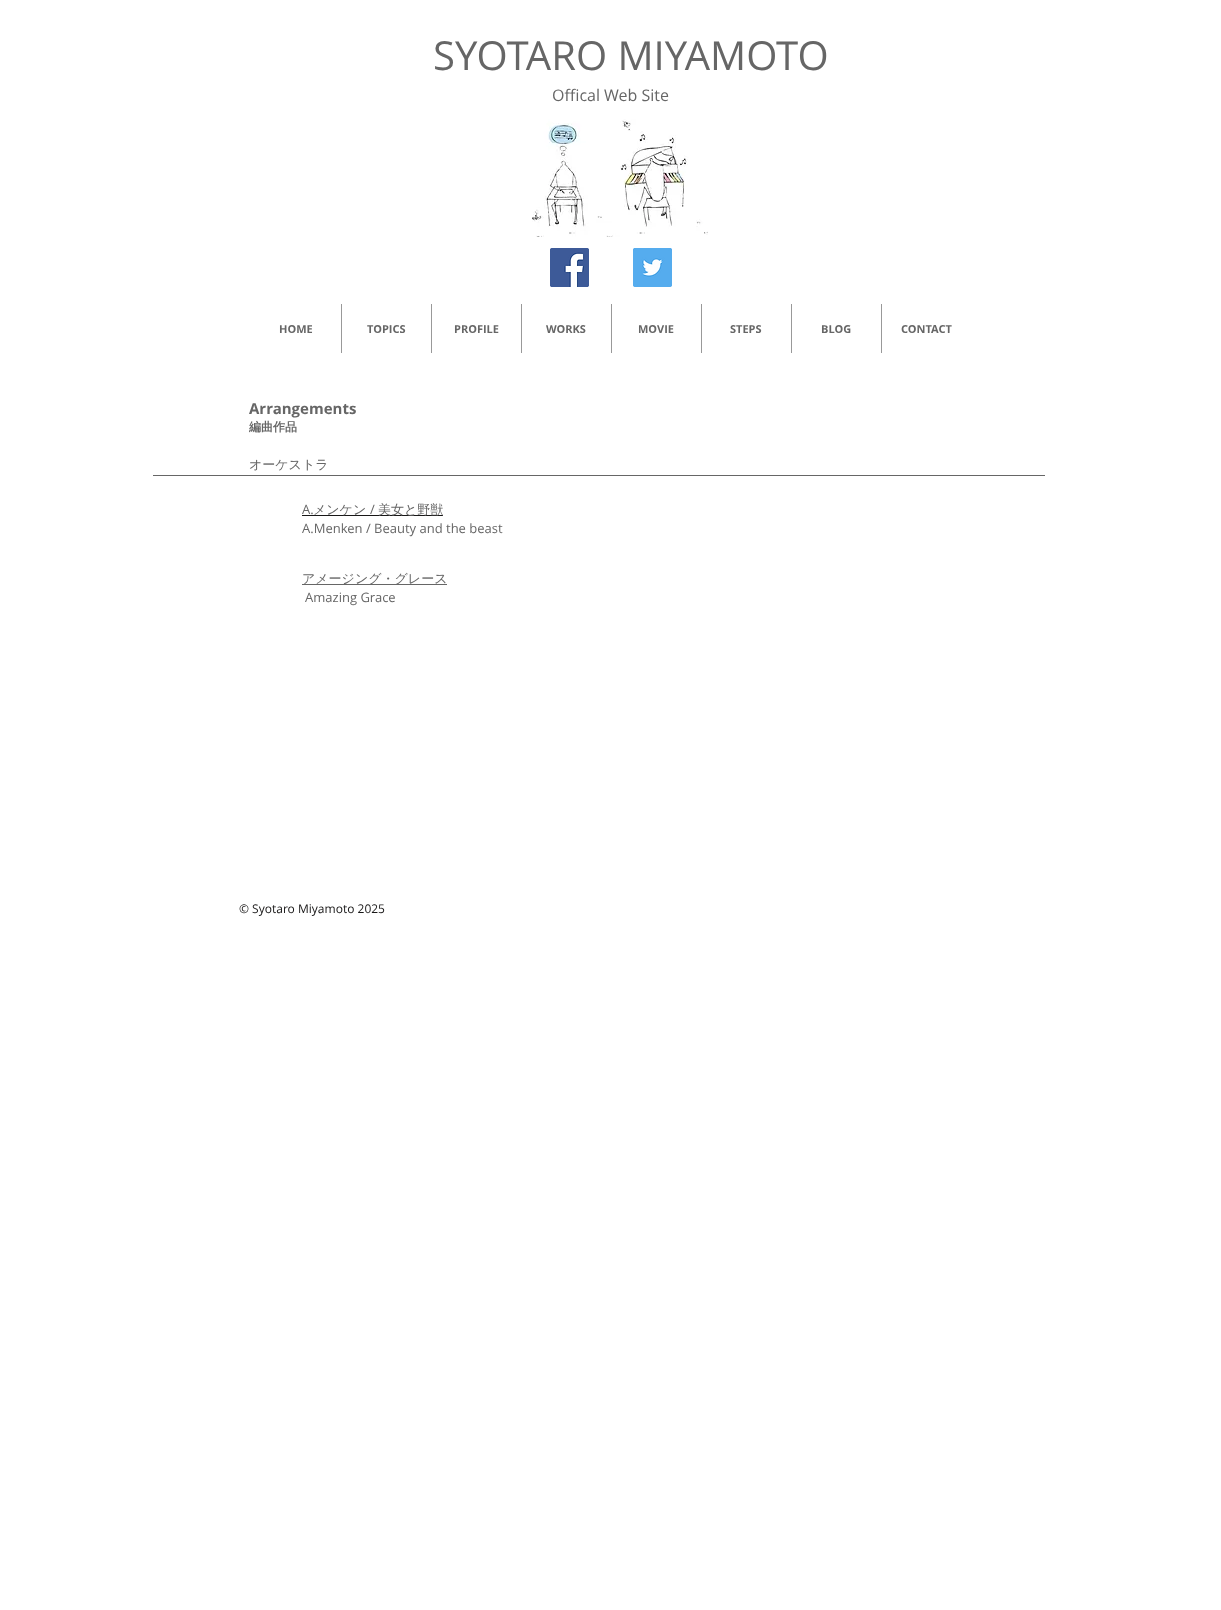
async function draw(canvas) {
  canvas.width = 1221
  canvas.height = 1610
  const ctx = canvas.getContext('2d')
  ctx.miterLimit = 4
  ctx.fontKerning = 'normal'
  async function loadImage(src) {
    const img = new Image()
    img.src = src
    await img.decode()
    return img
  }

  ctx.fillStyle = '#fff'
  ctx.fillRect(0, 0, 1221, 1610)
  ctx.font = '40px Open Sans'
  ctx.fillStyle = '#666'
  ctx.fillText('SYOTARO MIYAMOTO', 433, 70)
  ctx.font = '16px Open Sans'
  ctx.fillText('Offical Web Site', 552, 101)
  ctx.drawImage(await loadImage('image0.png'), 532, 119, 176, 118)
  ctx.drawImage(await loadImage('image1.png'), 550, 248, 39, 39)
  ctx.drawImage(await loadImage('image2.png'), 633, 248, 39, 39)
  ctx.font = 'bold 11px Open Sans'
  ctx.fillText('HOME', 279, 333)
  ctx.fillStyle = '#999'
  ctx.fillRect(341, 304, 1, 49)
  ctx.fillStyle = '#666'
  ctx.fillText('TOPICS', 367, 333)
  ctx.fillStyle = '#999'
  ctx.fillRect(431, 304, 1, 49)
  ctx.fillStyle = '#666'
  ctx.fillText('PROFILE', 454, 333)
  ctx.fillStyle = '#999'
  ctx.fillRect(521, 304, 1, 49)
  ctx.fillStyle = '#666'
  ctx.fillText('WORKS', 546, 333)
  ctx.fillStyle = '#999'
  ctx.fillRect(611, 304, 1, 49)
  ctx.fillStyle = '#666'
  ctx.fillText('MOVIE', 638, 333)
  ctx.fillStyle = '#999'
  ctx.fillRect(701, 304, 1, 49)
  ctx.fillStyle = '#666'
  ctx.fillText('STEPS', 730, 333)
  ctx.fillStyle = '#999'
  ctx.fillRect(791, 304, 1, 49)
  ctx.fillStyle = '#666'
  ctx.fillText('BLOG', 821, 333)
  ctx.fillStyle = '#999'
  ctx.fillRect(881, 304, 1, 49)
  ctx.fillStyle = '#666'
  ctx.fillText('CONTACT', 901, 333)
  ctx.font = 'bold 15px Open Sans'
  ctx.fillText('Arrangements', 249, 414)
  ctx.font = 'bold 12px WenQuanYi Zen Hei'
  ctx.fillText('編曲作品', 249, 431)
  ctx.font = '500 13px WenQuanYi Zen Hei'
  ctx.fillText('オーケストラ', 249, 469)
  ctx.fillRect(153, 475, 892, 1)
  ctx.font = '13px Open Sans'
  ctx.fillText('A.', 302, 514)
  ctx.fillStyle = '#181717'
  ctx.fillRect(302, 515, 141, 1)
  ctx.font = '500 13px WenQuanYi Zen Hei'
  ctx.fillStyle = '#666'
  ctx.fillText('メンケン', 313, 514)
  ctx.font = '13px Open Sans'
  ctx.fillText('/', 370, 514)
  ctx.font = '500 13px WenQuanYi Zen Hei'
  ctx.fillText('美女と野獣', 378, 514)
  ctx.font = '13px Open Sans'
  ctx.fillText('A.Menken / Beauty and the beast', 302, 533)
  ctx.fillRect(302, 584, 145, 1)
  ctx.font = '500 13px WenQuanYi Zen Hei'
  ctx.fillText('アメージング・グレース', 302, 583)
  ctx.font = '13px Open Sans'
  ctx.fillText('Amazing Grace', 305, 602)
  ctx.font = '12px Open Sans'
  ctx.fillStyle = '#181717'
  ctx.fillText('© Syotaro Miyamoto 2025', 239, 913)
}

draw(document.querySelector('canvas'))
